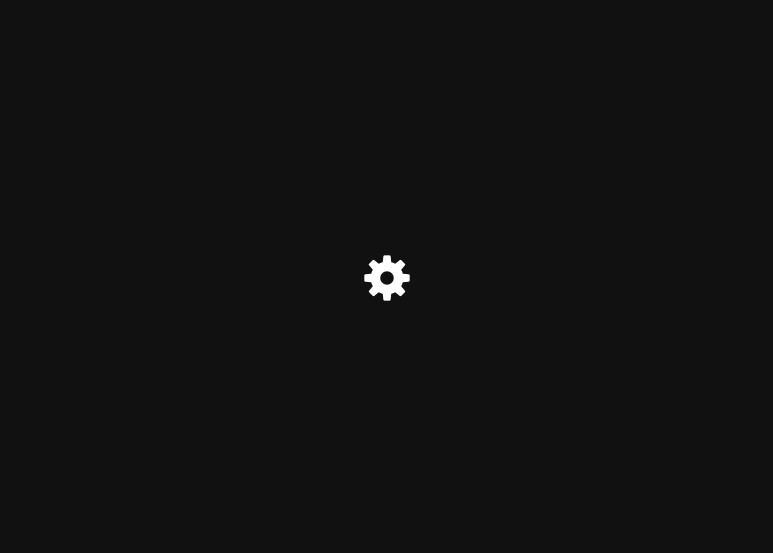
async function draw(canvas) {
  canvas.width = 773
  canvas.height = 553
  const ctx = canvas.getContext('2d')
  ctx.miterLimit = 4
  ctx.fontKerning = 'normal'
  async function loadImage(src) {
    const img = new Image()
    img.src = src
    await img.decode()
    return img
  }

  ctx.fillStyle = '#111'
  ctx.fillRect(0, 0, 773, 553)
  ctx.drawImage(await loadImage('image0.png'), 364, 255, 46, 46)
}

draw(document.querySelector('canvas'))
